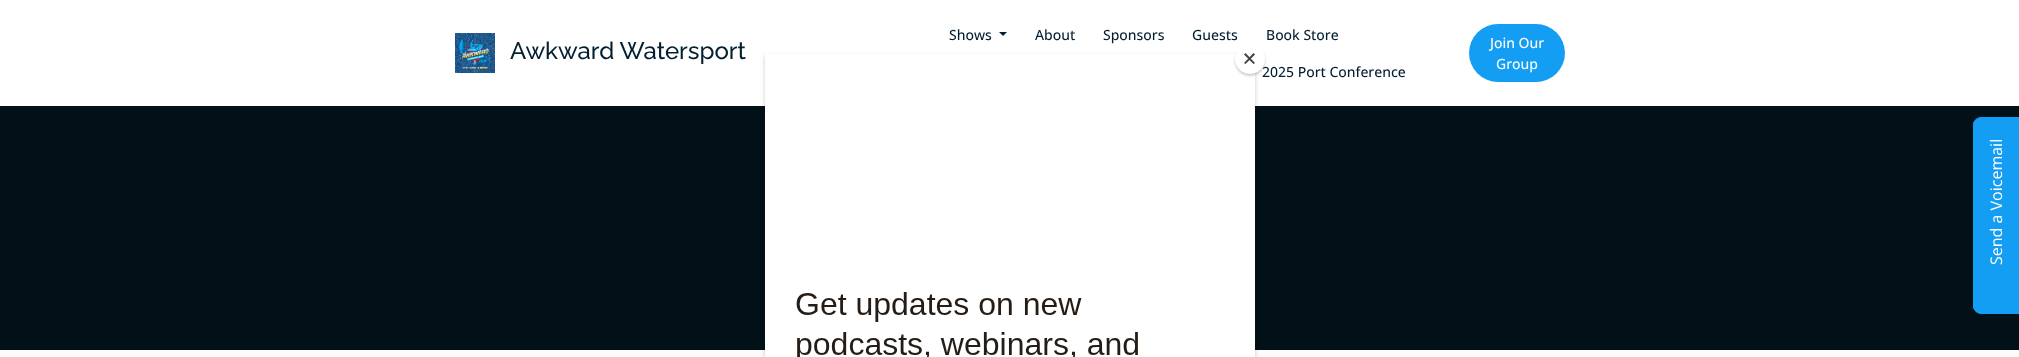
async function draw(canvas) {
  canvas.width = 2019
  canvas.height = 357
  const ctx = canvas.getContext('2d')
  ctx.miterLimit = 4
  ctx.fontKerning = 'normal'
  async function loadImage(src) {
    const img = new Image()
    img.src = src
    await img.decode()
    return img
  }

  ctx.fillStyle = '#fcfcfc'
  ctx.fillRect(0, 0, 2019, 357)
  ctx.fillStyle = '#fff'
  ctx.fillRect(0, 0, 2019, 106)
  ctx.drawImage(await loadImage('image0.png'), 455, 33, 40, 40)
  ctx.font = '500 24px Raleway'
  ctx.fillStyle = '#031f30'
  ctx.fillText('Awkward Watersport', 510, 59)
  ctx.font = '500 14px Open Sans'
  ctx.fillText('Shows', 949, 40)
  ctx.beginPath()
  ctx.moveTo(999, 32)
  ctx.lineTo(1007, 32)
  ctx.lineTo(1003, 36)
  ctx.closePath()
  ctx.fill()
  ctx.fillText('About', 1035, 40)
  ctx.fillText('Sponsors', 1103, 40)
  ctx.fillText('Guests', 1192, 40)
  ctx.fillText('Book Store', 1266, 40)
  ctx.fillText('2025 Port Conference', 1262, 77)
  ctx.fillStyle = '#139ef4'
  ctx.beginPath()
  ctx.roundRect(1469, 24, 96, 58, 29)
  ctx.fill()
  ctx.fillStyle = '#fff'
  ctx.fillText('Join Our', 1490, 48)
  ctx.fillText('Group', 1496, 69)
  ctx.fillStyle = '#021018'
  ctx.fillRect(0, 106, 2019, 244)
  ctx.fillStyle = '#00000033'
  ctx.filter = 'blur(2px)'
  ctx.beginPath()
  ctx.rect(765, 56, 490, 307)
  ctx.fill()
  ctx.filter = 'none'
  ctx.drawImage(await loadImage('image1.png'), 765, 54, 490, 303)
  ctx.filter = 'blur(1px)'
  ctx.beginPath()
  ctx.roundRect(1235, 46, 30, 30, 15)
  ctx.fill()
  ctx.filter = 'none'
  ctx.fillStyle = '#fff'
  ctx.beginPath()
  ctx.arc(1250, 59, 15, 0, 2 * Math.PI)
  ctx.fill()
  ctx.fillStyle = '#414141'
  ctx.beginPath()
  ctx.moveTo(1253.5, 53)
  ctx.lineTo(1255, 54.5)
  ctx.lineTo(1245.5, 64)
  ctx.lineTo(1244, 63)
  ctx.closePath()
  ctx.fill()
  ctx.beginPath()
  ctx.moveTo(1244, 54.5)
  ctx.lineTo(1245.5, 53)
  ctx.lineTo(1255, 63)
  ctx.lineTo(1253.5, 64)
  ctx.closePath()
  ctx.fill()
  ctx.fillStyle = '#139ef4'
  ctx.beginPath()
  ctx.moveTo(1973, 306)
  ctx.lineTo(1973, 125)
  ctx.bezierCurveTo(1973, 121, 1977, 117, 1981, 117)
  ctx.lineTo(2019, 117)
  ctx.lineTo(2019, 314)
  ctx.lineTo(1981, 314)
  ctx.bezierCurveTo(1977, 314, 1973, 310, 1973, 306)
  ctx.closePath()
  ctx.fill()
  ctx.beginPath()
  ctx.moveTo(1973.5, 305.5)
  ctx.lineTo(1973.5, 125.5)
  ctx.bezierCurveTo(1973.5, 121, 1977, 118, 1981, 118)
  ctx.lineTo(2018.5, 118)
  ctx.lineTo(2018.5, 313)
  ctx.lineTo(1981, 313)
  ctx.bezierCurveTo(1977, 313, 1973.5, 309.5, 1973.5, 305.5)
  ctx.closePath()
  ctx.strokeStyle = '#139ef4'
  ctx.stroke()
  ctx.font = '16px Open Sans'
  ctx.fillStyle = '#fff'
  ctx.save()
  ctx.translate(2002, 265)
  ctx.rotate(-90 * Math.PI / 180)
  ctx.fillText('Send a Voicemail', 0, 0)
  ctx.restore()
}

draw(document.querySelector('canvas'))
